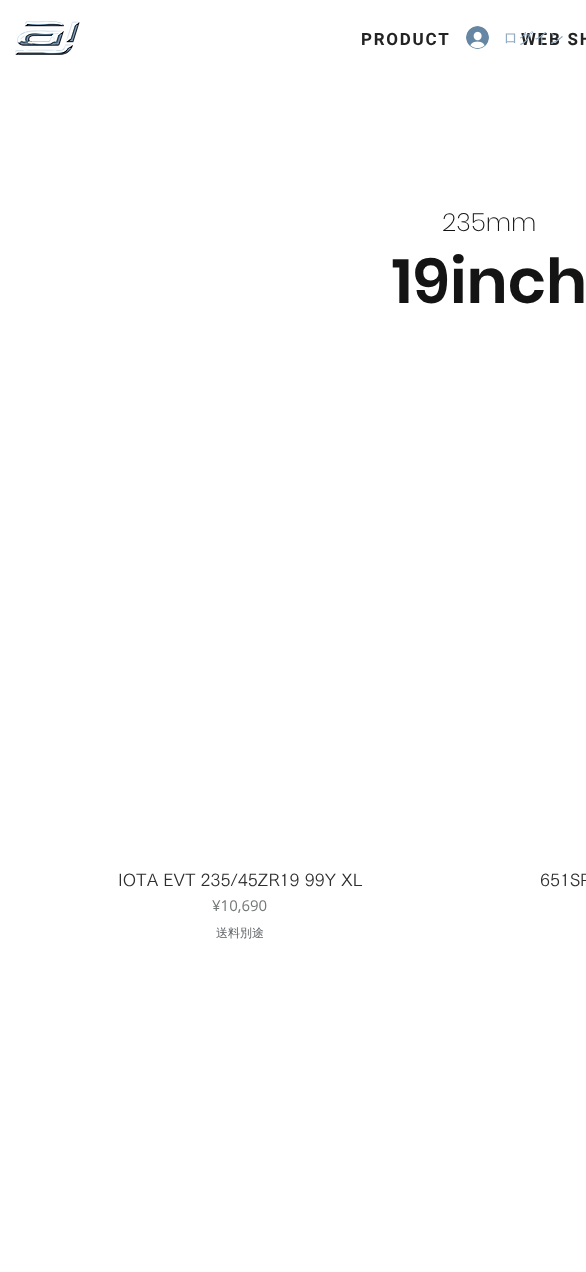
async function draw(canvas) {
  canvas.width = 586
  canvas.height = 1272
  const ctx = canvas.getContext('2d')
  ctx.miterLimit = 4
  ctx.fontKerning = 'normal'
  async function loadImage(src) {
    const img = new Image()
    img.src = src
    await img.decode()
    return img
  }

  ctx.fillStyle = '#fff'
  ctx.fillRect(0, 0, 586, 1272)
  ctx.drawImage(await loadImage('image0.png'), 15, 21, 65, 34)
  ctx.drawImage(await loadImage('image1.png'), 466, 26, 23, 23)
  ctx.letterSpacing = '1.75px'
  ctx.font = 'bold 17px Roboto'
  ctx.fillStyle = '#242323'
  ctx.fillText('WEB SH', 521, 45)
  ctx.letterSpacing = '0px'
  ctx.font = '500 15px WenQuanYi Zen Hei'
  ctx.fillStyle = '#91abc2'
  ctx.fillText('ログイン', 503, 43)
  ctx.letterSpacing = '1.75px'
  ctx.font = 'bold 17px Roboto'
  ctx.fillStyle = '#242323'
  ctx.fillText('PRODUCT', 361, 45)
  ctx.letterSpacing = '0px'
  ctx.font = '200 25px Poppins'
  ctx.fillStyle = '#141414'
  ctx.fillText('235mm', 442, 231)
  ctx.font = '600 62px Poppins'
  ctx.fillText('19inch', 392, 303)
  ctx.font = '17px "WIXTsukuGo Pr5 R"'
  ctx.fillStyle = '#2f2e2e'
  ctx.fillText('IOTA EVT 235/45ZR19 99Y XL', 118, 886)
  ctx.font = '15px Open Sans'
  ctx.fillStyle = '#747877'
  ctx.fillText('¥10,690', 212, 911)
  ctx.font = '500 12px WenQuanYi Zen Hei'
  ctx.fillStyle = '#5f6366'
  ctx.fillText('送料別途', 216, 937)
  ctx.font = '17px "WIXTsukuGo Pr5 R"'
  ctx.fillStyle = '#2f2e2e'
  ctx.fillText('651SP', 540, 886)
}

draw(document.querySelector('canvas'))
